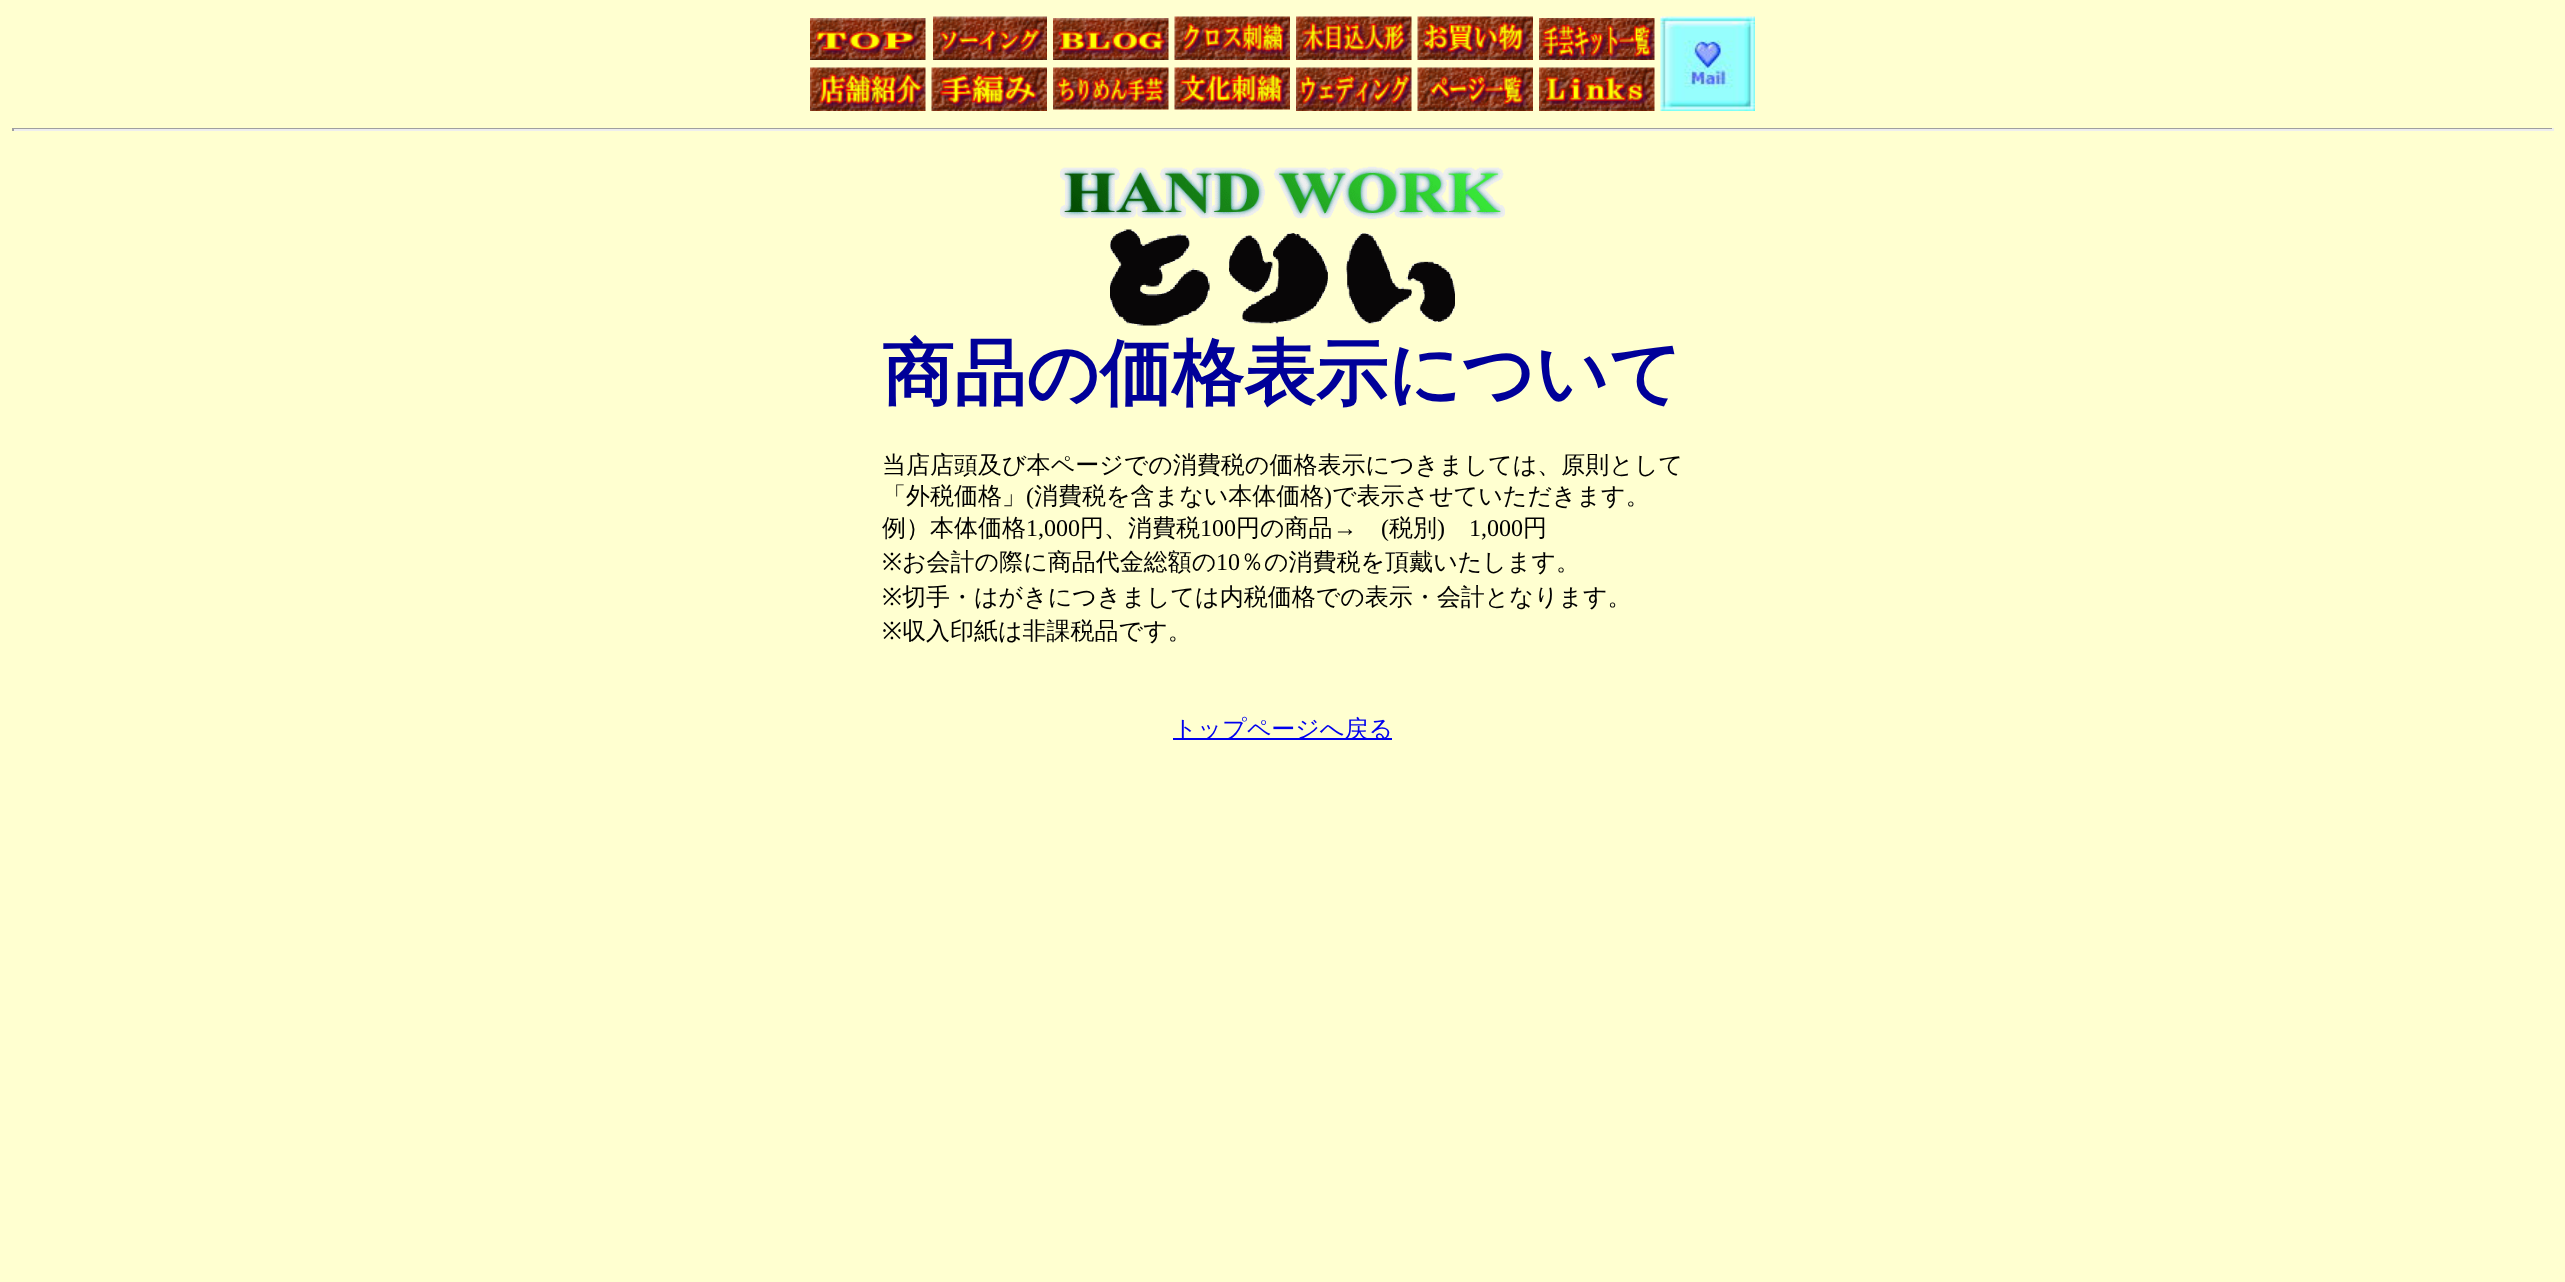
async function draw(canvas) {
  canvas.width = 2565
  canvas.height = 1282
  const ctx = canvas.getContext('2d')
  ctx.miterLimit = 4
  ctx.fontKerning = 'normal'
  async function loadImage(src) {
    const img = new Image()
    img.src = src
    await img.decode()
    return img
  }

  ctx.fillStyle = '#ffffd0'
  ctx.fillRect(0, 0, 2565, 1282)
  ctx.drawImage(await loadImage('image0.png'), 810, 18, 116, 42)
  ctx.drawImage(await loadImage('image1.png'), 933, 16, 114, 44)
  ctx.drawImage(await loadImage('image2.png'), 1053, 18, 116, 42)
  ctx.drawImage(await loadImage('image3.png'), 1174, 16, 116, 44)
  ctx.drawImage(await loadImage('image4.png'), 1296, 16, 116, 44)
  ctx.drawImage(await loadImage('image5.png'), 1417, 16, 116, 44)
  ctx.drawImage(await loadImage('image6.png'), 1539, 18, 116, 42)
  ctx.drawImage(await loadImage('image7.png'), 1660, 16, 95, 95)
  ctx.drawImage(await loadImage('image8.png'), 810, 67, 116, 44)
  ctx.drawImage(await loadImage('image9.png'), 931, 67, 116, 44)
  ctx.drawImage(await loadImage('image10.png'), 1053, 67, 116, 43)
  ctx.drawImage(await loadImage('image11.png'), 1174, 67, 116, 43)
  ctx.drawImage(await loadImage('image12.png'), 1296, 67, 116, 44)
  ctx.drawImage(await loadImage('image13.png'), 1417, 67, 116, 44)
  ctx.drawImage(await loadImage('image14.png'), 1539, 67, 116, 44)
  ctx.fillStyle = '#9f9f9f'
  ctx.fillRect(12, 128, 2541, 1)
  ctx.fillStyle = '#eee'
  ctx.fillRect(2552, 128, 2, 3)
  ctx.fillRect(12, 129, 2541, 2)
  ctx.fillStyle = '#9f9f9f'
  ctx.fillRect(12, 128, 2, 3)
  ctx.drawImage(await loadImage('image15.png'), 1060, 166, 445, 53)
  ctx.drawImage(await loadImage('image16.png'), 1110, 229, 345, 97)
  ctx.font = 'bold 72px WenQuanYi Zen Hei'
  ctx.fillStyle = '#009'
  ctx.fillText('商品の価格表示について', 882, 398)
  ctx.font = '500 24px WenQuanYi Zen Hei'
  ctx.fillStyle = '#000'
  ctx.fillText('当店店頭及び本ページでの消費税の価格表示につきましては、原則として', 882, 473)
  ctx.fillText('「外税価格」', 882, 504)
  ctx.font = '24px Liberation Serif'
  ctx.fillText('(', 1026, 504)
  ctx.font = '500 24px WenQuanYi Zen Hei'
  ctx.fillText('消費税を含まない本体価格', 1034, 504)
  ctx.font = '24px Liberation Serif'
  ctx.fillText(')', 1324, 504)
  ctx.font = '500 24px WenQuanYi Zen Hei'
  ctx.fillText('で表示させていただきます。', 1332, 504)
  ctx.fillText('例）本体価格', 882, 536)
  ctx.font = '24px Liberation Serif'
  ctx.fillText('1,000', 1026, 536)
  ctx.font = '500 24px WenQuanYi Zen Hei'
  ctx.fillText('円、消費税', 1080, 536)
  ctx.font = '24px Liberation Serif'
  ctx.fillText('100', 1200, 536)
  ctx.font = '500 24px WenQuanYi Zen Hei'
  ctx.fillText('円の商品', 1236, 536)
  ctx.font = '24px Liberation Serif'
  ctx.fillText('→', 1333, 536)
  ctx.fillText('(', 1381, 536)
  ctx.font = '500 24px WenQuanYi Zen Hei'
  ctx.fillText('税別', 1389, 536)
  ctx.font = '24px Liberation Serif'
  ctx.fillText(')', 1437, 536)
  ctx.fillText('1,000', 1469, 536)
  ctx.font = '500 24px WenQuanYi Zen Hei'
  ctx.fillText('円', 1523, 536)
  ctx.font = '24px Noto Sans'
  ctx.fillText('※', 882, 570)
  ctx.font = '500 24px WenQuanYi Zen Hei'
  ctx.fillText('お会計の際に商品代金総額の', 902, 570)
  ctx.font = '24px Liberation Serif'
  ctx.fillText('10', 1216, 570)
  ctx.font = '500 24px WenQuanYi Zen Hei'
  ctx.fillText('％の消費税を頂戴いたします。', 1240, 570)
  ctx.font = '24px Noto Sans'
  ctx.fillText('※', 882, 605)
  ctx.font = '500 24px WenQuanYi Zen Hei'
  ctx.fillText('切手・はがきにつきましては内税価格での表示・会計となります。', 902, 605)
  ctx.font = '24px Noto Sans'
  ctx.fillText('※', 882, 639)
  ctx.font = '500 24px WenQuanYi Zen Hei'
  ctx.fillText('収入印紙は非課税品です。', 902, 639)
  ctx.fillStyle = '#00e'
  ctx.fillRect(1173, 738, 219, 2)
  ctx.fillText('トップページへ戻る', 1173, 737)
}

draw(document.querySelector('canvas'))
